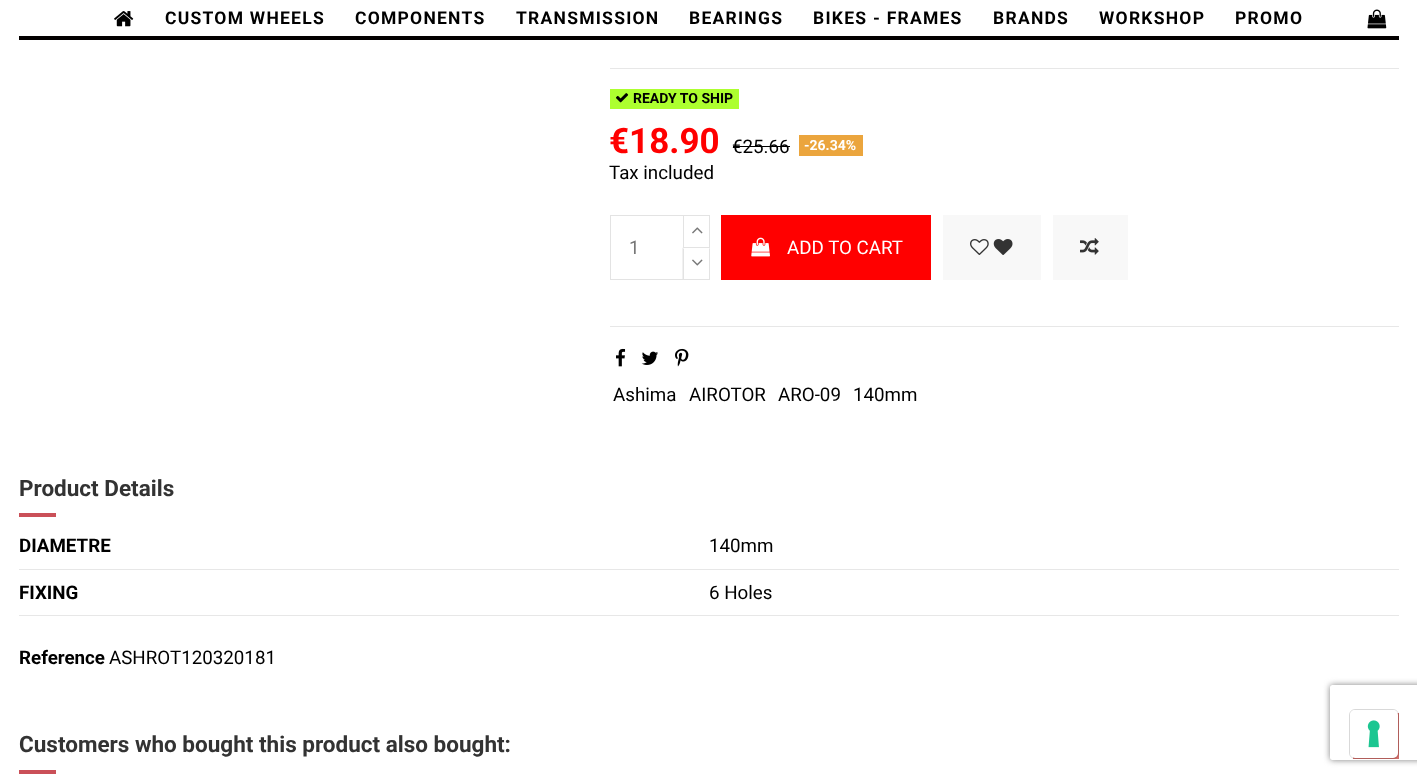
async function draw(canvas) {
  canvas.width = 1417
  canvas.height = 777
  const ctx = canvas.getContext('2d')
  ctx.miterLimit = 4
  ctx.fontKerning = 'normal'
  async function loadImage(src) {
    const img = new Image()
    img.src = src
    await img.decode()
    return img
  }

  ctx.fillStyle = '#fff'
  ctx.fillRect(0, 0, 1417, 777)
  ctx.fillStyle = '#030000'
  ctx.fillRect(19, 36, 1380, 4)
  ctx.drawImage(await loadImage('image0.png'), 114, 11, 20, 16)
  ctx.letterSpacing = '1.25px'
  ctx.font = 'bold 17.5px Roboto'
  ctx.fillStyle = '#000'
  ctx.fillText('CUSTOM WHEELS', 165, 24)
  ctx.fillText('COMPONENTS', 355, 24)
  ctx.fillText('TRANSMISSION', 516, 24)
  ctx.fillText('BEARINGS', 689, 24)
  ctx.fillText('BIKES - FRAMES', 813, 24)
  ctx.fillText('BRANDS', 993, 24)
  ctx.fillText('WORKSHOP', 1099, 24)
  ctx.fillText('PROMO', 1235, 24)
  ctx.drawImage(await loadImage('image1.png'), 1367, 9, 20, 20)
  ctx.fillStyle = '#e7e7e7'
  ctx.fillRect(610, 68, 789, 1)
  ctx.fillStyle = '#adff2f'
  ctx.fillRect(610, 89, 129, 20)
  ctx.drawImage(await loadImage('image2.png'), 616, 93, 13, 10)
  ctx.letterSpacing = '0px'
  ctx.font = 'bold 14px Roboto'
  ctx.fillStyle = '#000'
  ctx.fillText('READY TO SHIP', 633, 103)
  ctx.font = 'bold 35px Roboto'
  ctx.fillStyle = '#f00'
  ctx.fillText('€18.90', 609, 153)
  ctx.font = '18.75px Roboto'
  ctx.fillStyle = '#000'
  ctx.fillText('€25.66', 732, 153)
  ctx.fillRect(733, 146, 57, 1)
  ctx.fillStyle = '#eba53d'
  ctx.fillRect(799, 135, 64, 21)
  ctx.font = 'bold 14px Roboto'
  ctx.fillStyle = '#fff'
  ctx.fillText('-26.34%', 804, 150)
  ctx.font = '18.75px Roboto'
  ctx.fillStyle = '#000'
  ctx.fillText('Tax included', 609, 179)
  ctx.strokeStyle = '#e3e3e3'
  ctx.strokeRect(610.5, 215.5, 73, 64)
  ctx.fillStyle = '#777'
  ctx.fillText('1', 629, 254)
  ctx.strokeRect(683.5, 215.5, 26, 32)
  ctx.drawImage(await loadImage('image3.png'), 692, 227, 11, 7)
  ctx.fillStyle = '#fff'
  ctx.fillRect(683, 248, 1, 31)
  ctx.fillStyle = '#e3e3e3'
  ctx.beginPath()
  ctx.moveTo(710, 247.5)
  ctx.lineTo(710, 280)
  ctx.lineTo(709, 279)
  ctx.lineTo(709, 249)
  ctx.closePath()
  ctx.fill()
  ctx.fillRect(683, 279, 27, 1)
  ctx.beginPath()
  ctx.moveTo(682.5, 280)
  ctx.lineTo(682.5, 247.5)
  ctx.lineTo(684, 249)
  ctx.lineTo(684, 279)
  ctx.closePath()
  ctx.fill()
  ctx.drawImage(await loadImage('image4.png'), 692, 259, 11, 7)
  ctx.fillStyle = '#f00'
  ctx.fillRect(721, 215, 210, 65)
  ctx.drawImage(await loadImage('image5.png'), 751, 237, 19, 20)
  ctx.fillStyle = '#fff'
  ctx.fillText('ADD TO CART', 787, 254)
  ctx.fillStyle = '#f8f8f8'
  ctx.fillRect(943, 215, 98, 65)
  ctx.drawImage(await loadImage('image6.png'), 970, 239, 19, 16)
  ctx.drawImage(await loadImage('image7.png'), 993, 239, 20, 16)
  ctx.fillRect(1053, 215, 75, 65)
  ctx.drawImage(await loadImage('image8.png'), 1080, 238, 19, 17)
  ctx.fillStyle = '#e7e7e7'
  ctx.fillRect(610, 326, 789, 1)
  ctx.drawImage(await loadImage('image9.png'), 616, 348, 10, 19)
  ctx.drawImage(await loadImage('image10.png'), 641, 351, 17, 14)
  ctx.drawImage(await loadImage('image11.png'), 675, 348, 14, 19)
  ctx.fillStyle = '#000'
  ctx.fillText('Ashima', 613, 401)
  ctx.fillText('AIROTOR', 689, 401)
  ctx.fillText('ARO-09', 778, 401)
  ctx.fillText('140mm', 853, 401)
  ctx.font = 'bold 22.5px Roboto'
  ctx.fillStyle = '#333'
  ctx.fillText('Product Details', 19, 496)
  ctx.fillStyle = '#ca5058'
  ctx.fillRect(19, 513, 37, 4)
  ctx.fillStyle = '#e7e7e7'
  ctx.fillRect(19, 569, 1380, 1)
  ctx.font = 'bold 18.75px Roboto'
  ctx.fillStyle = '#000'
  ctx.fillText('DIAMETRE', 19, 552)
  ctx.font = '18.75px Roboto'
  ctx.fillText('140mm', 709, 552)
  ctx.fillStyle = '#e7e7e7'
  ctx.fillRect(19, 615, 1380, 1)
  ctx.font = 'bold 18.75px Roboto'
  ctx.fillStyle = '#000'
  ctx.fillText('FIXING', 19, 599)
  ctx.font = '18.75px Roboto'
  ctx.fillText('6 Holes', 709, 599)
  ctx.font = 'bold 18.75px Roboto'
  ctx.fillText('Reference', 19, 664)
  ctx.font = '18.75px Roboto'
  ctx.fillText('ASHROT120320181', 109, 664)
  ctx.font = 'bold 22.5px Roboto'
  ctx.fillStyle = '#333'
  ctx.fillText('Customers who bought this product also bought:', 19, 752)
  ctx.fillStyle = '#ca5058'
  ctx.fillRect(19, 770, 37, 4)
  ctx.save()
  ctx.beginPath()
  ctx.moveTo(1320, 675)
  ctx.lineTo(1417, 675)
  ctx.lineTo(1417, 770)
  ctx.lineTo(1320, 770)
  ctx.closePath()
  ctx.moveTo(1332.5, 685)
  ctx.lineTo(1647.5, 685)
  ctx.bezierCurveTo(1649, 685, 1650, 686, 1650, 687.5)
  ctx.lineTo(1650, 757.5)
  ctx.bezierCurveTo(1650, 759, 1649, 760, 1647.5, 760)
  ctx.lineTo(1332.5, 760)
  ctx.bezierCurveTo(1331, 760, 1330, 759, 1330, 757.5)
  ctx.lineTo(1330, 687.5)
  ctx.bezierCurveTo(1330, 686, 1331, 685, 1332.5, 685)
  ctx.closePath()
  ctx.clip('evenodd')
  ctx.fillStyle = '#808080'
  ctx.filter = 'blur(3px)'
  ctx.beginPath()
  ctx.roundRect(1330, 685, 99, 75, 2.5)
  ctx.fill()
  ctx.filter = 'none'
  ctx.restore()
  ctx.fillStyle = '#d06e6a'
  ctx.fillRect(1353, 713, 46, 46)
  ctx.beginPath()
  ctx.roundRect(1349.5, 709.5, 49, 49, 5.5)
  ctx.strokeStyle = '#00000026'
  ctx.stroke()
  ctx.fillStyle = '#fff'
  ctx.beginPath()
  ctx.roundRect(1350, 710, 48, 48, 5)
  ctx.fill()
  ctx.drawImage(await loadImage('image12.png'), 1367, 720, 13, 28)
}

draw(document.querySelector('canvas'))
